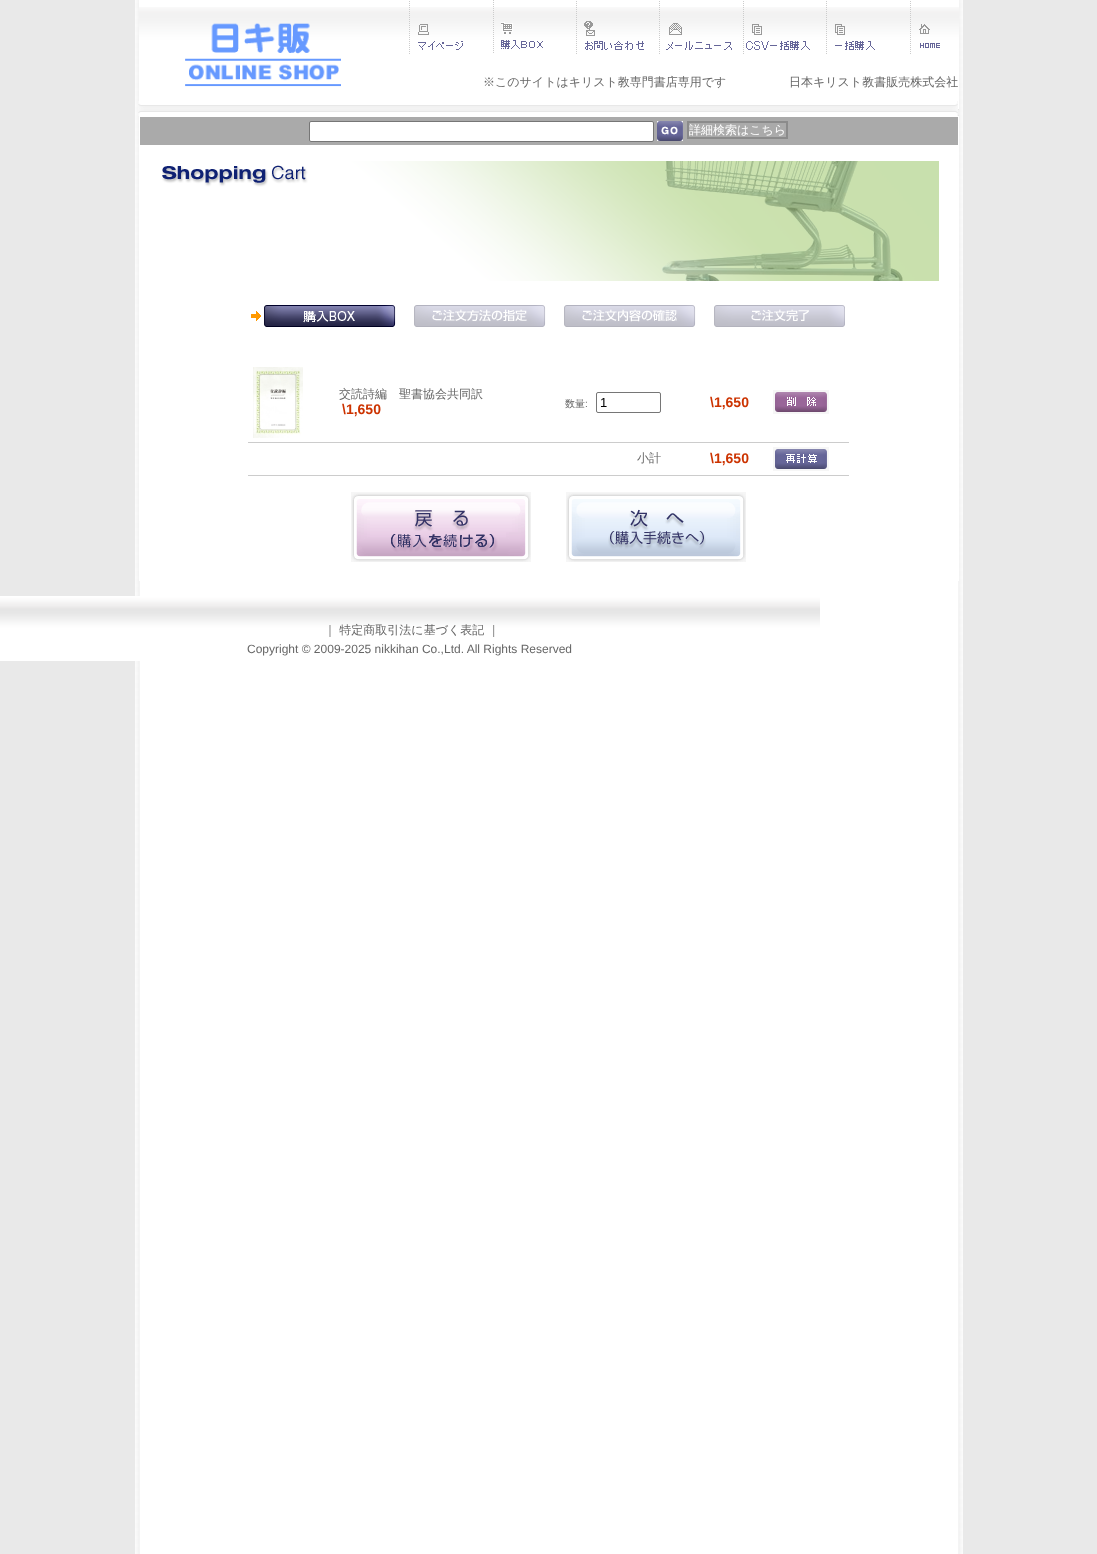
async function draw(canvas) {
  canvas.width = 1097
  canvas.height = 1554
  const ctx = canvas.getContext('2d')
  ctx.miterLimit = 4
  ctx.fontKerning = 'normal'
  async function loadImage(src) {
    const img = new Image()
    img.src = src
    await img.decode()
    return img
  }

  ctx.fillStyle = '#e9e9e9'
  ctx.fillRect(0, 0, 1097, 1554)
  ctx.drawImage(await loadImage('image0.png'), 135, 0, 828, 1554)
  ctx.fillStyle = '#fff'
  ctx.fillRect(139, 0, 820, 581)
  ctx.drawImage(await loadImage('image1.png'), 139, 7, 820, 109)
  ctx.drawImage(await loadImage('image2.png'), 185, 23, 156, 64)
  ctx.drawImage(await loadImage('image3.png'), 409, 1, 54, 53)
  ctx.drawImage(await loadImage('image4.png'), 493, 0, 50, 53)
  ctx.drawImage(await loadImage('image5.png'), 576, 1, 68, 53)
  ctx.drawImage(await loadImage('image6.png'), 659, 1, 73, 53)
  ctx.drawImage(await loadImage('image7.png'), 743, 1, 67, 53)
  ctx.drawImage(await loadImage('image8.png'), 826, 1, 49, 53)
  ctx.drawImage(await loadImage('image9.png'), 910, 1, 30, 53)
  ctx.font = '500 12px WenQuanYi Zen Hei'
  ctx.fillStyle = '#666'
  ctx.fillText('※このサイトはキリスト教専門書店専用です', 483, 86)
  ctx.fillText('日本キリスト教書販売株式会社', 789, 86)
  ctx.drawImage(await loadImage('image10.png'), 138, 101, 820, 15)
  ctx.fillStyle = '#aaa'
  ctx.fillRect(140, 117, 818, 28)
  ctx.fillStyle = '#fff'
  ctx.beginPath()
  ctx.roundRect(309.5, 121.5, 344, 20, 1.5)
  ctx.fill()
  ctx.strokeStyle = '#767676'
  ctx.stroke()
  ctx.drawImage(await loadImage('image11.png'), 657, 121, 26, 20)
  ctx.strokeStyle = '#8b8b8b'
  ctx.lineWidth = 2
  ctx.strokeRect(688, 122, 99, 16)
  ctx.fillText('詳細検索はこちら', 689, 134)
  ctx.drawImage(await loadImage('image12.png'), 162, 161, 777, 120)
  ctx.drawImage(await loadImage('image13.png'), 251, 305, 594, 22)
  ctx.drawImage(await loadImage('image14.png'), 253, 367, 50, 71)
  ctx.fillStyle = '#666'
  ctx.fillText('交読詩編　聖書協会共同訳', 339, 398)
  ctx.font = 'bold 14px Liberation Sans'
  ctx.fillStyle = '#c30'
  ctx.fillText('\\1,650', 342, 414)
  ctx.fillStyle = '#ccc'
  ctx.fillRect(248, 442, 601, 1)
  ctx.drawImage(await loadImage('image15.png'), 773, 390, 56, 24)
  ctx.font = '500 10px WenQuanYi Zen Hei'
  ctx.fillStyle = '#666'
  ctx.fillText('数量', 565, 407)
  ctx.font = '10px Liberation Sans'
  ctx.fillText(':', 585, 407)
  ctx.beginPath()
  ctx.roundRect(596.5, 392.5, 64, 20, 1.5)
  ctx.strokeStyle = '#767676'
  ctx.lineWidth = 1
  ctx.stroke()
  ctx.font = '13px Liberation Sans'
  ctx.fillStyle = '#000'
  ctx.fillText('1', 600, 407)
  ctx.font = 'bold 14px Liberation Sans'
  ctx.fillStyle = '#c30'
  ctx.fillText('\\1,650', 710, 407)
  ctx.fillStyle = '#ccc'
  ctx.fillRect(248, 475, 601, 1)
  ctx.drawImage(await loadImage('image16.png'), 773, 447, 56, 24)
  ctx.font = '500 12px WenQuanYi Zen Hei'
  ctx.fillStyle = '#666'
  ctx.fillText('小計', 637, 462)
  ctx.font = 'bold 14px Liberation Sans'
  ctx.fillStyle = '#c30'
  ctx.fillText('\\1,650', 710, 463)
  ctx.drawImage(await loadImage('image17.png'), 351, 492, 180, 70)
  ctx.drawImage(await loadImage('image18.png'), 566, 492, 180, 70)
  ctx.drawImage(await loadImage('image19.png'), 0, 596, 820, 65)
  ctx.font = '500 12px WenQuanYi Zen Hei'
  ctx.fillStyle = '#666'
  ctx.fillText('｜ 特定商取引法に基づく表記 ｜', 324, 634)
  ctx.font = '12px Liberation Sans'
  ctx.fillText('Copyright © 2009-2025 nikkihan Co.,Ltd. All Rights Reserved', 247, 653)
}

draw(document.querySelector('canvas'))
